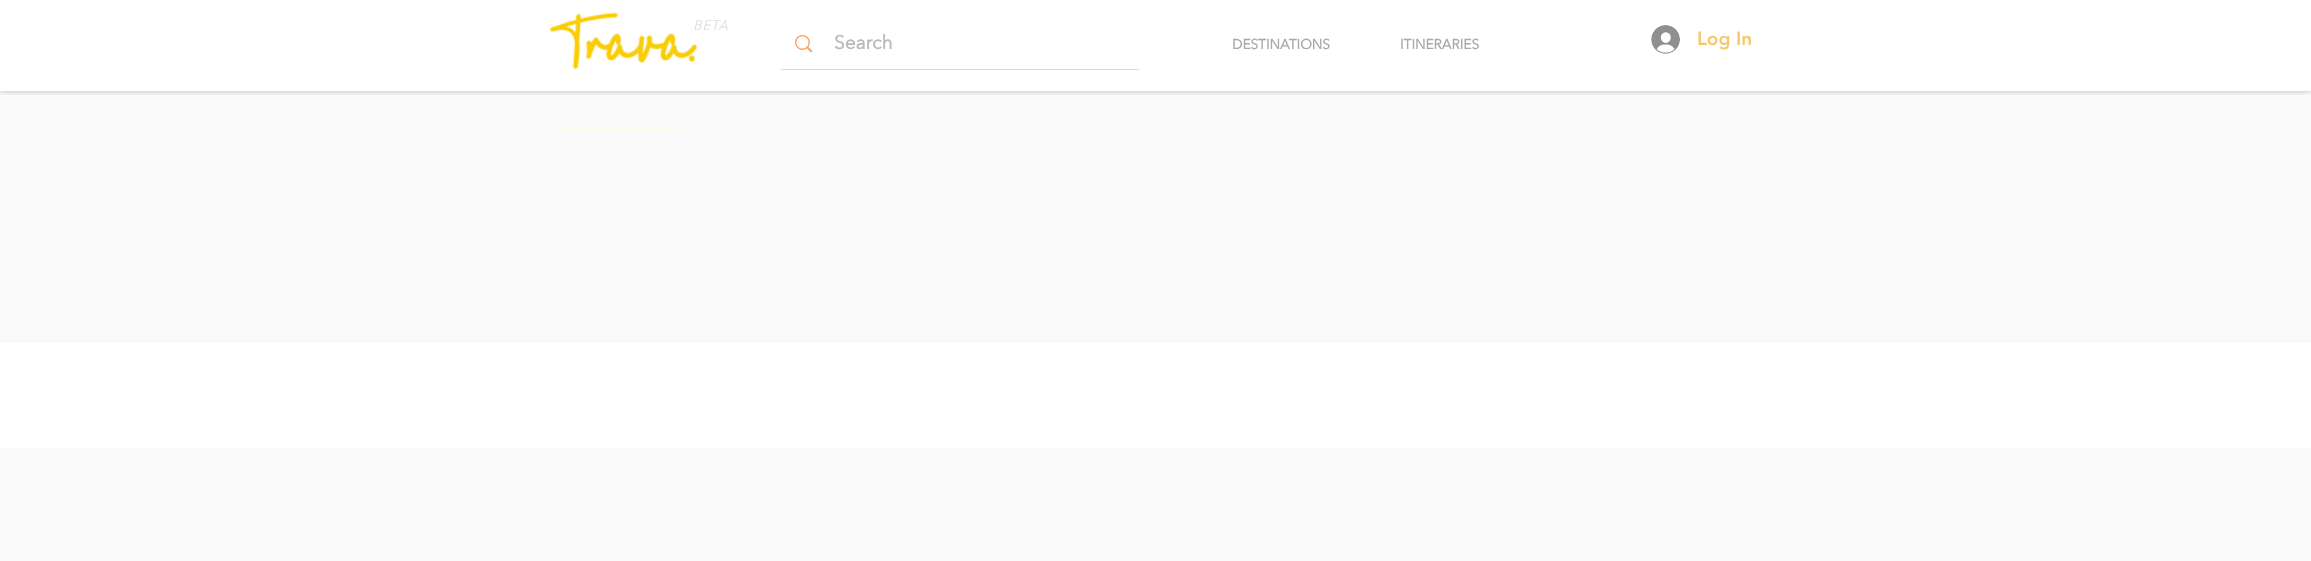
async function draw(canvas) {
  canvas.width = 2311
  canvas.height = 561
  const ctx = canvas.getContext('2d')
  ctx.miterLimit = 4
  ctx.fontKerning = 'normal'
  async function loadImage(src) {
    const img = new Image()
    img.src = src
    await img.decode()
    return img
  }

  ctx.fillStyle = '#fff'
  ctx.fillRect(0, 0, 2311, 561)
  ctx.fillStyle = '#fafafa'
  ctx.fillRect(0, 91, 2311, 252)
  ctx.save()
  ctx.beginPath()
  ctx.rect(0, 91, 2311, 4)
  ctx.clip()
  ctx.fillStyle = '#00000045'
  ctx.filter = 'blur(3px)'
  ctx.beginPath()
  ctx.rect(0, 0, 2311, 91)
  ctx.fill()
  ctx.filter = 'none'
  ctx.restore()
  ctx.letterSpacing = '0.5px'
  ctx.font = 'italic 300 13.75px "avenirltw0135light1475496"'
  ctx.fillStyle = '#dbdbdb'
  ctx.fillText('BETA', 693, 30)
  ctx.drawImage(await loadImage('image0.png'), 549, 12, 149, 57)
  ctx.fillRect(781, 69, 358, 1)
  ctx.drawImage(await loadImage('image1.png'), 795, 35, 18, 18)
  ctx.letterSpacing = '0px'
  ctx.font = 'bold 19px Avenir Next'
  ctx.fillStyle = '#bababa'
  ctx.fillText('Search', 834, 49)
  ctx.font = 'bold 13.75px Avenir Next'
  ctx.fillStyle = '#a9a9a9'
  ctx.fillText('DESTINATIONS', 1232, 49)
  ctx.fillText('ITINERARIES', 1400, 49)
  ctx.drawImage(await loadImage('image2.png'), 1651, 25, 29, 29)
  ctx.font = '900 19px "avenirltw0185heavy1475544"'
  ctx.fillStyle = '#f7c86b'
  ctx.fillText('Log In', 1697, 45)
  ctx.fillStyle = '#fff9e3'
  ctx.fillRect(559, 128, 121, 1)
  ctx.fillStyle = '#fafafa'
  ctx.fillRect(0, 448, 2311, 113)
}

draw(document.querySelector('canvas'))
